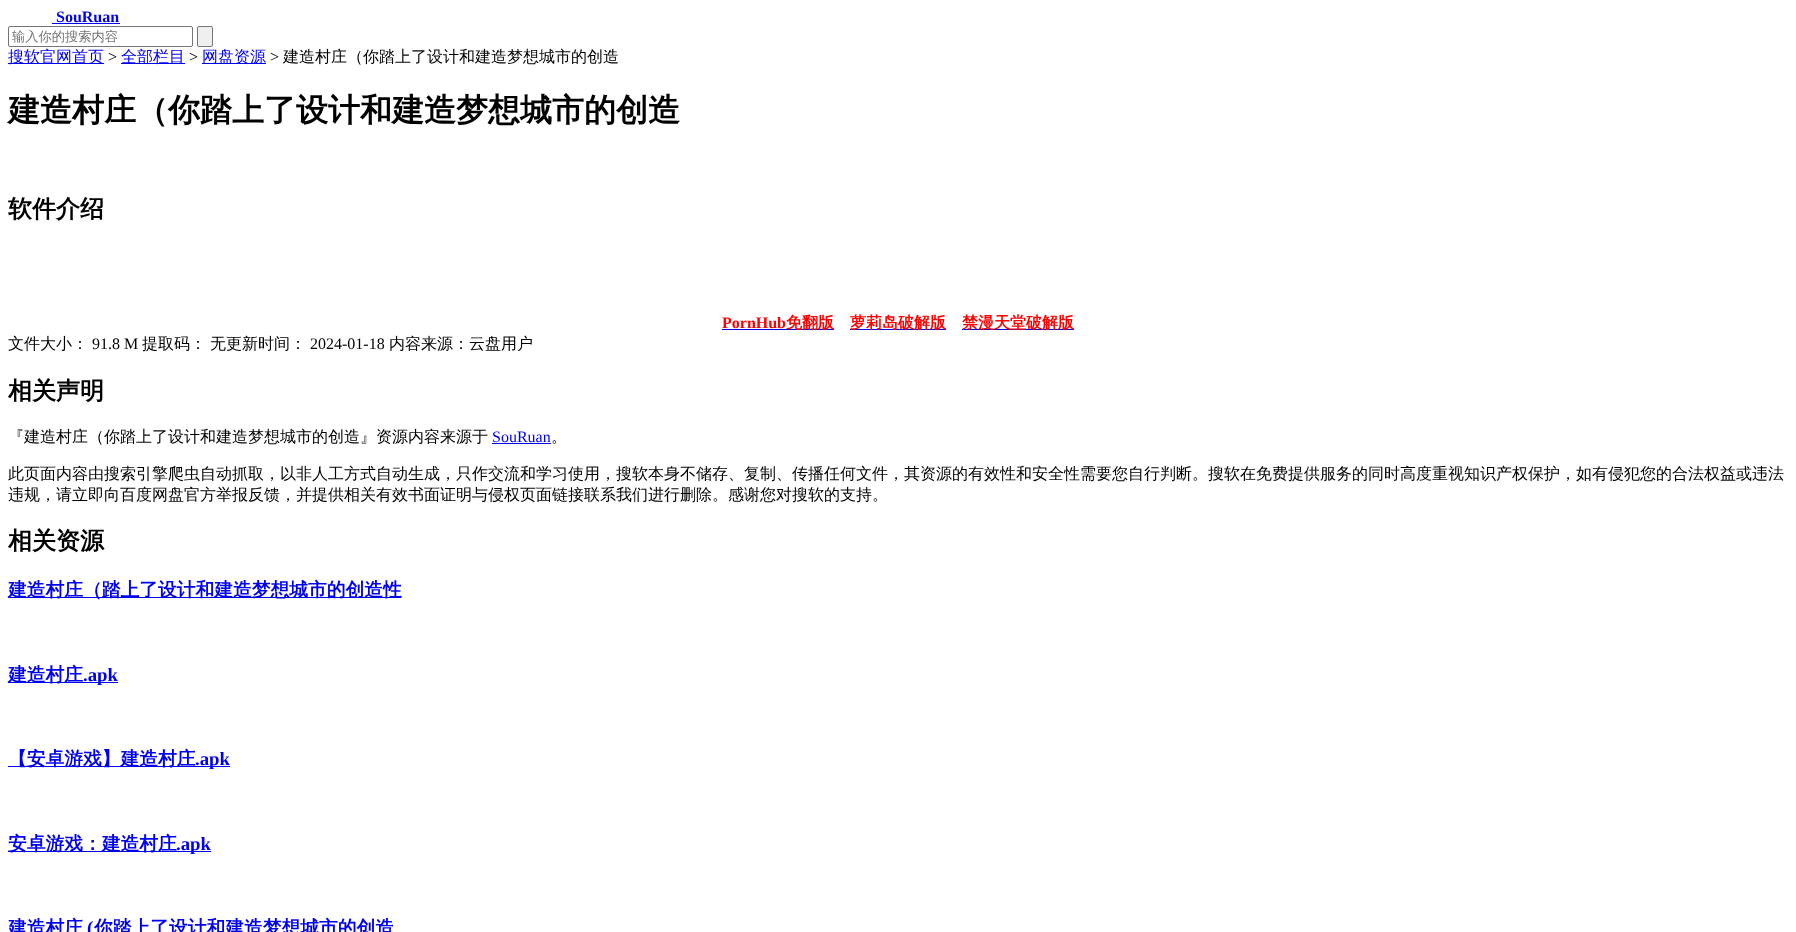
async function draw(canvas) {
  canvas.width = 1796
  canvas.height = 932
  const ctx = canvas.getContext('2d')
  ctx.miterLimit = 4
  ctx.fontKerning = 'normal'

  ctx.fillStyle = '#fff'
  ctx.fillRect(0, 0, 1796, 932)
  ctx.font = 'bold 16px Liberation Serif'
  ctx.fillStyle = '#00e'
  ctx.fillText('SouRuan', 56, 22)
  ctx.fillRect(52, 23, 68, 1)
  ctx.beginPath()
  ctx.roundRect(8.5, 26.5, 184, 20, 1.5)
  ctx.strokeStyle = '#767676'
  ctx.stroke()
  ctx.font = '500 13.25px WenQuanYi Zen Hei'
  ctx.fillStyle = '#757575'
  ctx.fillText('输入你的搜索内容', 12, 41)
  ctx.fillStyle = '#efefef'
  ctx.beginPath()
  ctx.roundRect(197.5, 26.5, 15, 20, 1.5)
  ctx.fill()
  ctx.stroke()
  ctx.fillStyle = '#00e'
  ctx.fillRect(8, 63, 96, 1)
  ctx.font = '500 16px WenQuanYi Zen Hei'
  ctx.fillText('搜软官网首页', 8, 62)
  ctx.font = '16px Liberation Serif'
  ctx.fillStyle = '#000'
  ctx.fillText('>', 108, 62)
  ctx.fillStyle = '#00e'
  ctx.fillRect(121, 63, 64, 1)
  ctx.font = '500 16px WenQuanYi Zen Hei'
  ctx.fillText('全部栏目', 121, 62)
  ctx.font = '16px Liberation Serif'
  ctx.fillStyle = '#000'
  ctx.fillText('>', 189, 62)
  ctx.fillStyle = '#00e'
  ctx.fillRect(202, 63, 64, 1)
  ctx.font = '500 16px WenQuanYi Zen Hei'
  ctx.fillText('网盘资源', 202, 62)
  ctx.font = '16px Liberation Serif'
  ctx.fillStyle = '#000'
  ctx.fillText('>', 270, 62)
  ctx.font = '500 16px WenQuanYi Zen Hei'
  ctx.fillText('建造村庄（你踏上了设计和建造梦想城市的创造', 283, 62)
  ctx.font = 'bold 32px WenQuanYi Zen Hei'
  ctx.fillText('建造村庄（你踏上了设计和建造梦想城市的创造', 8, 121)
  ctx.font = 'bold 24px WenQuanYi Zen Hei'
  ctx.fillText('软件介绍', 8, 217)
  ctx.font = 'bold 16px Liberation Serif'
  ctx.fillStyle = '#f00'
  ctx.fillText('PornHub', 722, 328)
  ctx.fillStyle = '#00e'
  ctx.fillRect(722, 329, 112, 1)
  ctx.font = 'bold 16px WenQuanYi Zen Hei'
  ctx.fillStyle = '#f00'
  ctx.fillText('免翻版', 786, 328)
  ctx.fillStyle = '#00e'
  ctx.fillRect(850, 329, 96, 1)
  ctx.fillStyle = '#f00'
  ctx.fillText('萝莉岛破解版', 850, 328)
  ctx.fillStyle = '#00e'
  ctx.fillRect(962, 329, 112, 1)
  ctx.fillStyle = '#f00'
  ctx.fillText('禁漫天堂破解版', 962, 328)
  ctx.font = '500 16px WenQuanYi Zen Hei'
  ctx.fillStyle = '#000'
  ctx.fillText('文件大小：', 8, 349)
  ctx.font = '16px Liberation Serif'
  ctx.fillText('91.8 M', 92, 349)
  ctx.font = '500 16px WenQuanYi Zen Hei'
  ctx.fillText('提取码：', 142, 349)
  ctx.fillText('无更新时间：', 210, 349)
  ctx.font = '16px Liberation Serif'
  ctx.fillText('2024-01-18', 310, 349)
  ctx.font = '500 16px WenQuanYi Zen Hei'
  ctx.fillText('内容来源：云盘用户', 389, 349)
  ctx.font = 'bold 24px WenQuanYi Zen Hei'
  ctx.fillText('相关声明', 8, 399)
  ctx.font = '500 16px WenQuanYi Zen Hei'
  ctx.fillText('『建造村庄（你踏上了设计和建造梦想城市的创造』资源内容来源于', 8, 442)
  ctx.font = '16px Liberation Serif'
  ctx.fillStyle = '#00e'
  ctx.fillText('SouRuan', 492, 442)
  ctx.fillRect(492, 443, 59, 1)
  ctx.font = '500 16px WenQuanYi Zen Hei'
  ctx.fillStyle = '#000'
  ctx.fillText('。', 551, 442)
  ctx.fillText('此页面内容由搜索引擎爬虫自动抓取，以非人工方式自动生成，只作交流和学习使用，搜软本身不储存、复制、传播任何文件，其资源的有效性和安全性需要您自行判断。搜软在免费提供服务的同时高度重视知识产权保护，如有侵犯您的合法权益或违法', 8, 479)
  ctx.fillText('违规，请立即向百度网盘官方举报反馈，并提供相关有效书面证明与侵权页面链接联系我们进行删除。感谢您对搜软的支持。', 8, 500)
  ctx.font = 'bold 24px WenQuanYi Zen Hei'
  ctx.fillText('相关资源', 8, 549)
  ctx.fillStyle = '#00e'
  ctx.fillRect(8, 597, 393, 1)
  ctx.font = 'bold 18.75px WenQuanYi Zen Hei'
  ctx.fillText('建造村庄（踏上了设计和建造梦想城市的创造性', 8, 596)
  ctx.fillRect(8, 682, 110, 1)
  ctx.fillText('建造村庄', 8, 681)
  ctx.font = 'bold 18.75px Liberation Serif'
  ctx.fillText('.apk', 83, 681)
  ctx.fillRect(8, 766, 222, 1)
  ctx.font = 'bold 18.75px WenQuanYi Zen Hei'
  ctx.fillText('【安卓游戏】建造村庄', 8, 765)
  ctx.font = 'bold 18.75px Liberation Serif'
  ctx.fillText('.apk', 195, 765)
  ctx.fillRect(8, 851, 203, 1)
  ctx.font = 'bold 18.75px WenQuanYi Zen Hei'
  ctx.fillText('安卓游戏：建造村庄', 8, 850)
  ctx.font = 'bold 18.75px Liberation Serif'
  ctx.fillText('.apk', 176, 850)
  ctx.font = 'bold 18.75px WenQuanYi Zen Hei'
  ctx.fillText('建造村庄', 8, 934)
  ctx.font = 'bold 18.75px Liberation Serif'
  ctx.fillText('(', 87, 934)
  ctx.font = 'bold 18.75px WenQuanYi Zen Hei'
  ctx.fillText('你踏上了设计和建造梦想城市的创造', 94, 934)
}

draw(document.querySelector('canvas'))
